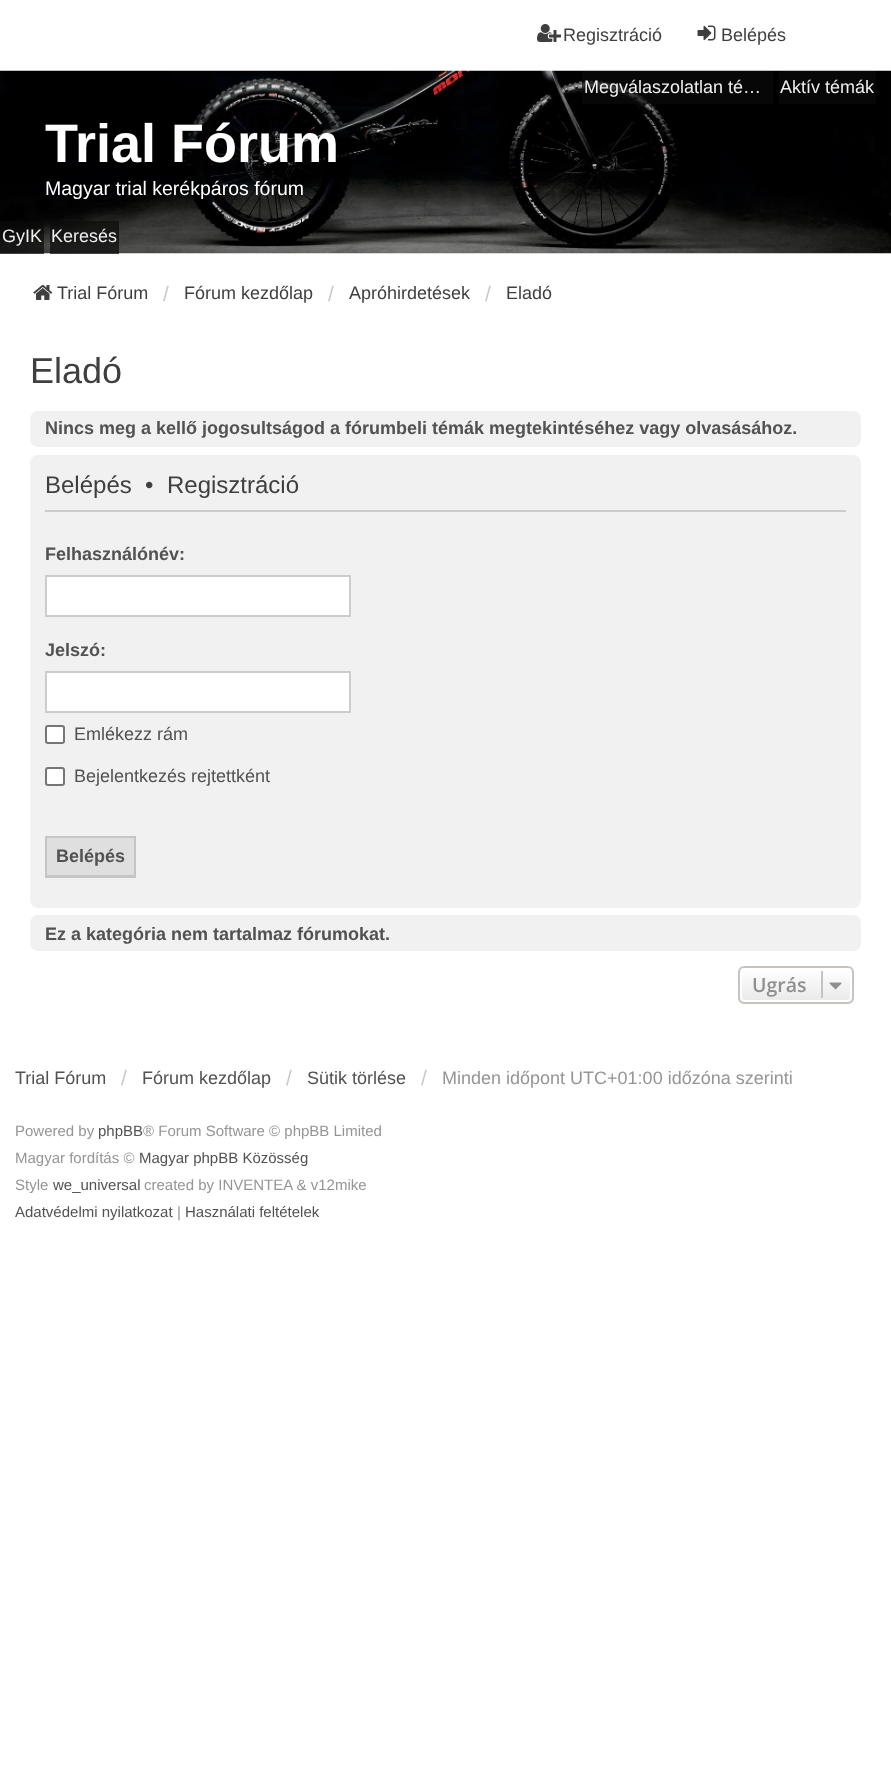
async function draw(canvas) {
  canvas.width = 891
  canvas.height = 1776
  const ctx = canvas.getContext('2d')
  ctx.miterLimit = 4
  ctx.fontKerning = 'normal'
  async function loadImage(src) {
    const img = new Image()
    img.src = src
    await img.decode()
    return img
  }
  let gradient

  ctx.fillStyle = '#fff'
  ctx.fillRect(0, 0, 891, 1776)
  ctx.drawImage(await loadImage('image0.png'), 537, 24, 24, 18)
  ctx.font = '18px Liberation Sans'
  ctx.fillStyle = '#3f3f3f'
  ctx.fillText('Regisztráció', 563, 41)
  ctx.drawImage(await loadImage('image1.png'), 697, 25, 19, 16)
  ctx.fillText('Belépés', 721, 41)
  ctx.drawImage(await loadImage('image2.png'), 0, 70, 891, 184)
  ctx.fillStyle = '#0a0a0ab3'
  ctx.fillRect(582, 71, 191, 33)
  ctx.fillStyle = '#eee'
  ctx.fillText('Megválaszolatlan té…', 584, 93)
  ctx.fillStyle = '#070707'
  ctx.fillRect(779, 71, 97, 33)
  ctx.fillStyle = '#eee'
  ctx.fillText('Aktív témák', 780, 93)
  ctx.font = 'bold 54px Liberation Sans'
  ctx.fillStyle = '#fff'
  ctx.fillText('Trial Fórum', 45, 162)
  ctx.font = '19.5px Liberation Sans'
  ctx.fillText('Magyar trial kerékpáros fórum', 45, 195)
  ctx.fillStyle = '#0a0a0ab3'
  ctx.fillRect(0, 221, 44, 33)
  ctx.font = '18px Liberation Sans'
  ctx.fillStyle = '#eee'
  ctx.fillText('GyIK', 2, 242)
  ctx.fillStyle = '#0a0a0ab3'
  ctx.fillRect(50, 221, 69, 33)
  ctx.fillStyle = '#eee'
  ctx.fillText('Keresés', 51, 242)
  ctx.drawImage(await loadImage('image3.png'), 33, 285, 20, 15)
  ctx.fillStyle = '#3f3f3f'
  ctx.fillText('Trial Fórum', 57, 299)
  ctx.font = '21px Liberation Sans'
  ctx.fillStyle = '#cacaca'
  ctx.fillText('/', 163, 301)
  ctx.font = '18px Liberation Sans'
  ctx.fillStyle = '#3f3f3f'
  ctx.fillText('Fórum kezdőlap', 184, 299)
  ctx.font = '21px Liberation Sans'
  ctx.fillStyle = '#cacaca'
  ctx.fillText('/', 328, 301)
  ctx.font = '18px Liberation Sans'
  ctx.fillStyle = '#3f3f3f'
  ctx.fillText('Apróhirdetések', 349, 299)
  ctx.font = '21px Liberation Sans'
  ctx.fillStyle = '#cacaca'
  ctx.fillText('/', 485, 301)
  ctx.font = '18px Liberation Sans'
  ctx.fillStyle = '#3f3f3f'
  ctx.fillText('Eladó', 506, 299)
  ctx.font = '36px Liberation Sans'
  ctx.fillText('Eladó', 30, 383)
  ctx.fillStyle = '#f1f1f1'
  ctx.beginPath()
  ctx.roundRect(30, 411, 831, 36, 8)
  ctx.fill()
  ctx.font = 'bold 18px Liberation Sans'
  ctx.fillStyle = '#525252'
  ctx.fillText('Nincs meg a kellő jogosultságod a fórumbeli témák megtekintéséhez vagy olvasásához.', 45, 434)
  ctx.fillStyle = '#f1f1f1'
  ctx.beginPath()
  ctx.roundRect(30, 455, 831, 453, 8)
  ctx.fill()
  ctx.fillStyle = '#ccc'
  ctx.fillRect(45, 510, 801, 2)
  ctx.font = '24px Liberation Sans'
  ctx.fillStyle = '#3f3f3f'
  ctx.fillText('Belépés', 45, 493)
  ctx.fillText('•', 145, 493)
  ctx.fillText('Regisztráció', 167, 493)
  ctx.font = 'bold 18px Liberation Sans'
  ctx.fillStyle = '#525252'
  ctx.fillText('Felhasználónév:', 45, 560)
  ctx.fillStyle = '#fff'
  ctx.beginPath()
  ctx.rect(46, 576, 304, 40)
  ctx.fill()
  ctx.strokeStyle = '#ccc'
  ctx.lineWidth = 2
  ctx.stroke()
  ctx.fillStyle = '#525252'
  ctx.fillText('Jelszó:', 45, 656)
  ctx.fillStyle = '#fff'
  ctx.beginPath()
  ctx.rect(46, 672, 304, 40)
  ctx.fill()
  ctx.stroke()
  ctx.beginPath()
  ctx.roundRect(46, 726, 18, 17, 2)
  ctx.fill()
  ctx.strokeStyle = '#767676'
  ctx.stroke()
  ctx.font = '18px Liberation Sans'
  ctx.fillStyle = '#525252'
  ctx.fillText('Emlékezz rám', 74, 740)
  ctx.fillStyle = '#fff'
  ctx.beginPath()
  ctx.roundRect(46, 768, 18, 17, 2)
  ctx.fill()
  ctx.stroke()
  ctx.fillStyle = '#525252'
  ctx.fillText('Bejelentkezés rejtettként', 74, 782)
  ctx.fillStyle = '#dfdfdf'
  ctx.fillRect(47, 838, 87, 37)
  ctx.fillStyle = '#c5c5c5'
  ctx.fillRect(45, 836, 90, 2)
  ctx.fillRect(134, 836, 2, 42)
  ctx.fillRect(45, 875, 90, 3)
  ctx.fillRect(45, 836, 2, 42)
  ctx.font = 'bold 18px Liberation Sans'
  ctx.fillStyle = '#525252'
  ctx.fillText('Belépés', 56, 862)
  ctx.fillStyle = '#f1f1f1'
  ctx.beginPath()
  ctx.roundRect(30, 915, 831, 36, 8)
  ctx.fill()
  ctx.fillStyle = '#525252'
  ctx.fillText('Ez a kategória nem tartalmaz fórumokat.', 45, 940)
  ctx.save()
  ctx.beginPath()
  ctx.roundRect(738, 966, 116, 38, 6)
  ctx.clip()
  gradient = ctx.createLinearGradient(796, 968, 796, 1002)
  gradient.addColorStop(0, '#fff')
  gradient.addColorStop(1, '#e9e9e9')
  ctx.fillStyle = gradient
  ctx.fillRect(738, 968, 116, 34)
  ctx.restore()
  ctx.beginPath()
  ctx.roundRect(741, 969, 110, 32, 4)
  ctx.strokeStyle = '#fff'
  ctx.stroke()
  ctx.beginPath()
  ctx.roundRect(739, 967, 114, 36, 5)
  ctx.strokeStyle = '#c7c3bf'
  ctx.stroke()
  ctx.font = '600 19.5px Open Sans'
  ctx.fillStyle = '#8f8f8f'
  ctx.fillText('Ugrás', 752, 992)
  ctx.fillStyle = '#c7c3bf'
  ctx.fillRect(821, 971, 2, 27)
  ctx.drawImage(await loadImage('image4.png'), 829, 982, 13, 8)
  ctx.font = '18px Liberation Sans'
  ctx.fillStyle = '#525252'
  ctx.fillText('Trial Fórum', 15, 1084)
  ctx.font = '21px Liberation Sans'
  ctx.fillStyle = '#cacaca'
  ctx.fillText('/', 121, 1085)
  ctx.font = '18px Liberation Sans'
  ctx.fillStyle = '#525252'
  ctx.fillText('Fórum kezdőlap', 142, 1084)
  ctx.font = '21px Liberation Sans'
  ctx.fillStyle = '#cacaca'
  ctx.fillText('/', 286, 1085)
  ctx.font = '18px Liberation Sans'
  ctx.fillStyle = '#525252'
  ctx.fillText('Sütik törlése', 307, 1084)
  ctx.font = '21px Liberation Sans'
  ctx.fillStyle = '#cacaca'
  ctx.fillText('/', 421, 1085)
  ctx.font = '18px Liberation Sans'
  ctx.fillStyle = '#959595'
  ctx.fillText('Minden időpont UTC+01:00 időzóna szerinti', 442, 1084)
  ctx.font = '15px Liberation Sans'
  ctx.fillText('Powered by', 15, 1136)
  ctx.fillStyle = '#525252'
  ctx.fillText('phpBB', 98, 1136)
  ctx.fillStyle = '#959595'
  ctx.fillText('® Forum Software © phpBB Limited', 143, 1136)
  ctx.fillText('Magyar fordítás ©', 15, 1163)
  ctx.fillStyle = '#525252'
  ctx.fillText('Magyar phpBB Közösség', 139, 1163)
  ctx.fillStyle = '#959595'
  ctx.fillText('Style', 15, 1190)
  ctx.fillStyle = '#525252'
  ctx.fillText('we_universal', 53, 1190)
  ctx.fillStyle = '#959595'
  ctx.fillText('created by INVENTEA & v12mike', 144, 1190)
  ctx.fillStyle = '#525252'
  ctx.fillText('Adatvédelmi nyilatkozat', 15, 1217)
  ctx.fillStyle = '#959595'
  ctx.fillText('|', 177, 1217)
  ctx.fillStyle = '#525252'
  ctx.fillText('Használati feltételek', 185, 1217)
}

draw(document.querySelector('canvas'))
